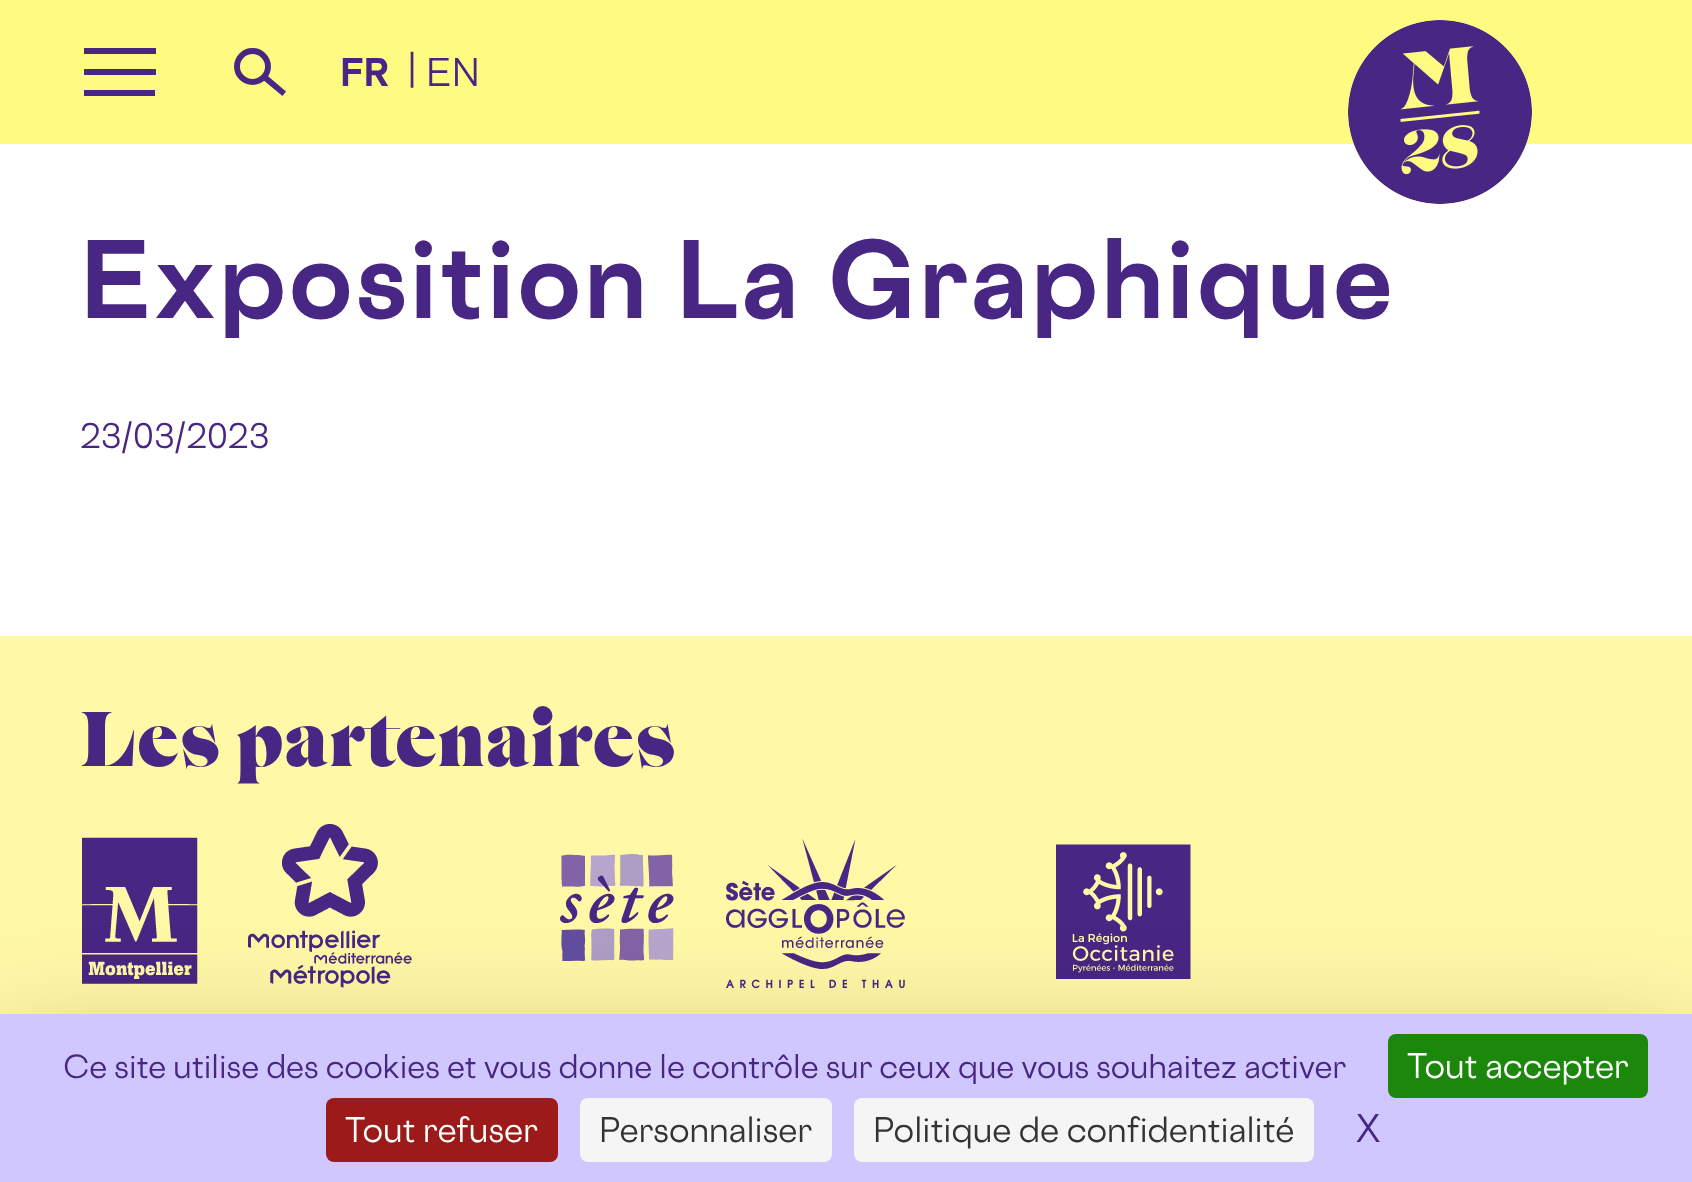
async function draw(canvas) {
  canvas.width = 1692
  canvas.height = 1182
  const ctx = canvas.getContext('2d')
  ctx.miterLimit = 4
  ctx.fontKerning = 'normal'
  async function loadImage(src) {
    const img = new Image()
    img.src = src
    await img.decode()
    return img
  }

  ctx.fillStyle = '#fff'
  ctx.fillRect(0, 0, 1692, 1182)
  ctx.fillStyle = '#fffa81'
  ctx.fillRect(0, 0, 1692, 144)
  ctx.beginPath()
  ctx.arc(1440, 112, 92, 0, 2 * Math.PI)
  ctx.fill()
  ctx.drawImage(await loadImage('image0.png'), 1348, 20, 184, 184)
  ctx.fillStyle = '#482683'
  ctx.fillRect(84, 48, 72, 6)
  ctx.fillRect(84, 69, 72, 6)
  ctx.fillRect(84, 90, 71, 6)
  ctx.beginPath()
  ctx.arc(252.5, 66.5, 15.5, 0, 2 * Math.PI)
  ctx.strokeStyle = '#482683'
  ctx.lineWidth = 5.9
  ctx.stroke()
  ctx.beginPath()
  ctx.moveTo(266, 74.5)
  ctx.lineTo(286, 91.5)
  ctx.lineTo(282.5, 96)
  ctx.lineTo(262, 79)
  ctx.closePath()
  ctx.fill()
  ctx.font = 'bold 36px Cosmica'
  ctx.fillText('FR', 340, 86)
  ctx.font = '36px Cosmica'
  ctx.fillText('|', 407, 82)
  ctx.fillText('EN', 426, 86)
  ctx.letterSpacing = '3px'
  ctx.font = 'bold 100px Cosmica'
  ctx.fillText('Exposition La Graphique', 80, 318)
  ctx.letterSpacing = '0px'
  ctx.font = '32px Cosmica'
  ctx.fillText('23/03/2023', 80, 448)
  ctx.fillStyle = '#fff8a7'
  ctx.fillRect(0, 636, 1692, 378)
  ctx.letterSpacing = '2.25px'
  ctx.font = '900 76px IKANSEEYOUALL'
  ctx.fillStyle = '#482683'
  ctx.fillText('Les partenaires', 80, 766)
  ctx.drawImage(await loadImage('image1.png'), 82, 837, 116, 147)
  ctx.drawImage(await loadImage('image2.png'), 248, 824, 164, 164)
  ctx.drawImage(await loadImage('image3.png'), 560, 854, 114, 107)
  ctx.drawImage(await loadImage('image4.png'), 726, 839, 179, 150)
  ctx.drawImage(await loadImage('image5.png'), 1056, 844, 135, 135)
  ctx.fillStyle = '#00000040'
  ctx.filter = 'blur(60px)'
  ctx.beginPath()
  ctx.rect(0, 1054, 1692, 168)
  ctx.fill()
  ctx.filter = 'none'
  ctx.fillStyle = '#d0c7ff'
  ctx.fillRect(0, 1014, 1692, 168)
  ctx.letterSpacing = '0px'
  ctx.font = '30px Cosmica'
  ctx.fillStyle = '#482683'
  ctx.fillText('Ce site utilise des cookies et vous donne le contrôle sur ceux que vous souhaitez activer', 63, 1078)
  ctx.fillStyle = '#1b870b'
  ctx.beginPath()
  ctx.roundRect(1388, 1034, 260, 64, 8)
  ctx.fill()
  ctx.font = '32px Cosmica'
  ctx.fillStyle = '#fff'
  ctx.fillText('Tout accepter', 1407, 1078)
  ctx.fillStyle = '#9c1a1a'
  ctx.beginPath()
  ctx.roundRect(326, 1098, 232, 64, 8)
  ctx.fill()
  ctx.fillStyle = '#fff'
  ctx.fillText('Tout refuser', 345, 1142)
  ctx.fillStyle = '#f5f5f5'
  ctx.beginPath()
  ctx.roundRect(580, 1098, 252, 64, 8)
  ctx.fill()
  ctx.fillStyle = '#333'
  ctx.fillText('Personnaliser', 599, 1142)
  ctx.fillStyle = '#f5f5f5'
  ctx.beginPath()
  ctx.roundRect(854, 1098, 460, 64, 8)
  ctx.fill()
  ctx.fillStyle = '#333'
  ctx.fillText('Politique de confidentialité', 873, 1142)
  ctx.font = '36px Cosmica'
  ctx.fillStyle = '#482683'
  ctx.fillText('X', 1355, 1142)
}

draw(document.querySelector('canvas'))
